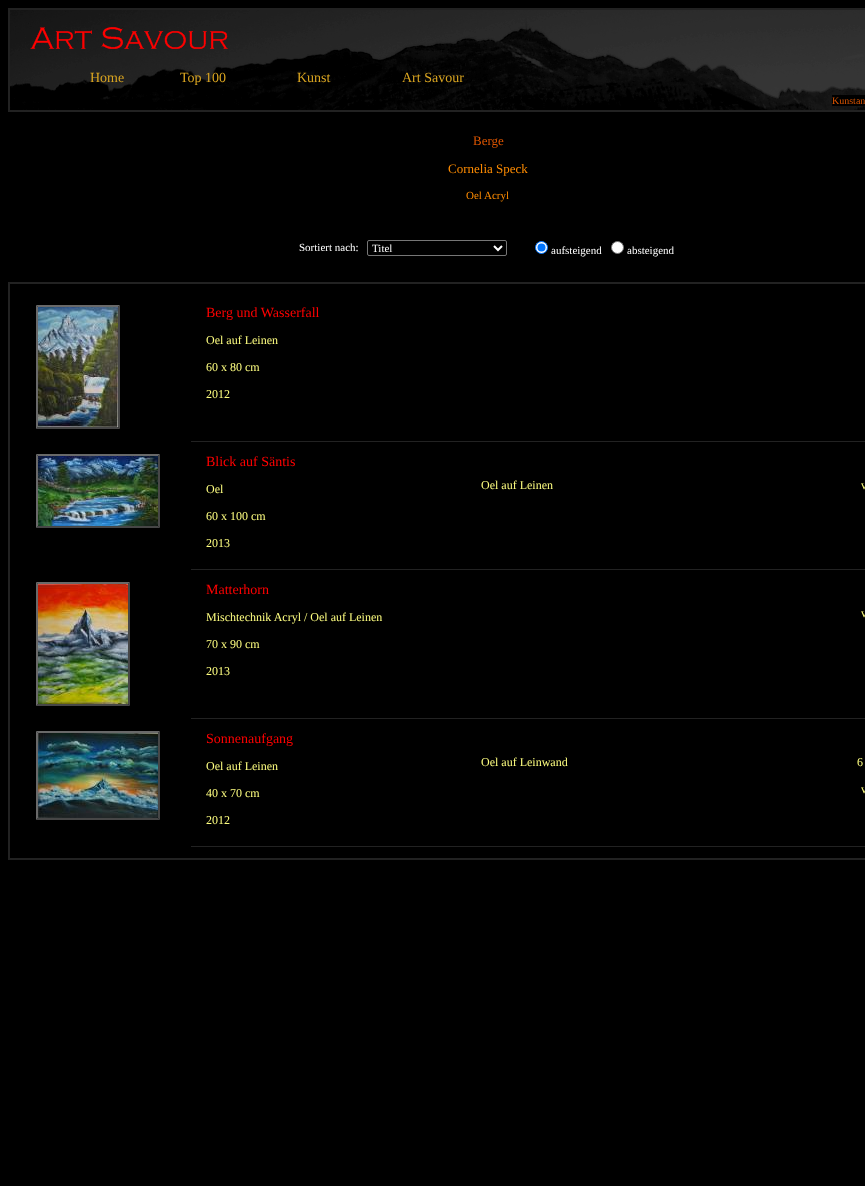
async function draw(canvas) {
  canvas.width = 865
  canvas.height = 1186
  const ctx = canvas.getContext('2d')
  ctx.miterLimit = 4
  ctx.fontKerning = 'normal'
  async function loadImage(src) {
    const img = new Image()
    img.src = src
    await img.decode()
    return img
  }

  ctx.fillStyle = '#000'
  ctx.fillRect(0, 0, 865, 1186)
  ctx.strokeStyle = '#222'
  ctx.lineWidth = 2
  ctx.strokeRect(9, 9, 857, 102)
  ctx.drawImage(await loadImage('image0.png'), 10, 10, 855, 100)
  ctx.font = '14px Liberation Serif'
  ctx.fillStyle = '#daa520'
  ctx.fillText('Home', 90, 82)
  ctx.fillText('Top 100', 180, 82)
  ctx.fillStyle = '#000'
  ctx.fillRect(231, 82, 1, 1)
  ctx.fillStyle = '#daa520'
  ctx.fillText('Kunst', 297, 82)
  ctx.fillText('Art Savour', 402, 82)
  ctx.fillStyle = '#000'
  ctx.fillRect(471, 79, 1, 2)
  ctx.fillRect(832, 95, 33, 11)
  ctx.font = '10px Liberation Serif'
  ctx.fillStyle = '#d50'
  ctx.fillText('Kunstan', 832, 104)
  ctx.font = '13px Liberation Serif'
  ctx.fillText('Berge', 473, 145)
  ctx.fillStyle = '#ff8c00'
  ctx.fillText('Cornelia Speck', 448, 173)
  ctx.font = '11px Liberation Serif'
  ctx.fillText('Oel Acryl', 466, 199)
  ctx.fillStyle = '#fff'
  ctx.fillText('Sortiert nach:', 299, 251)
  ctx.beginPath()
  ctx.roundRect(367.5, 240.5, 139, 15, 1.5)
  ctx.strokeStyle = '#767676'
  ctx.lineWidth = 1
  ctx.stroke()
  ctx.beginPath()
  ctx.moveTo(494, 246)
  ctx.lineTo(498, 250)
  ctx.lineTo(502, 246)
  ctx.strokeStyle = '#fff'
  ctx.lineWidth = 2
  ctx.stroke()
  ctx.fillText('Titel', 372, 252)
  ctx.beginPath()
  ctx.arc(541.5, 247.5, 6, 0, 2 * Math.PI)
  ctx.fill()
  ctx.strokeStyle = '#0075ff'
  ctx.lineWidth = 1
  ctx.stroke()
  ctx.fillStyle = '#0075ff'
  ctx.beginPath()
  ctx.arc(541.5, 247.5, 4, 0, 2 * Math.PI)
  ctx.fill()
  ctx.fillStyle = '#fff'
  ctx.fillText('aufsteigend', 551, 254)
  ctx.beginPath()
  ctx.arc(617.5, 247.5, 6, 0, 2 * Math.PI)
  ctx.fill()
  ctx.strokeStyle = '#767676'
  ctx.stroke()
  ctx.fillText('absteigend', 627, 254)
  ctx.fillStyle = '#222'
  ctx.fillRect(8, 282, 857, 2)
  ctx.fillRect(8, 858, 857, 2)
  ctx.fillRect(8, 282, 2, 578)
  ctx.fillStyle = '#696969'
  ctx.beginPath()
  ctx.moveTo(36, 305)
  ctx.lineTo(120, 305)
  ctx.lineTo(118, 307)
  ctx.lineTo(38, 307)
  ctx.closePath()
  ctx.fill()
  ctx.fillStyle = '#464646'
  ctx.beginPath()
  ctx.moveTo(120, 305)
  ctx.lineTo(120, 429)
  ctx.lineTo(118, 427)
  ctx.lineTo(118, 307)
  ctx.closePath()
  ctx.fill()
  ctx.beginPath()
  ctx.moveTo(120, 429)
  ctx.lineTo(36, 429)
  ctx.lineTo(38, 427)
  ctx.lineTo(118, 427)
  ctx.closePath()
  ctx.fill()
  ctx.fillStyle = '#696969'
  ctx.beginPath()
  ctx.moveTo(36, 429)
  ctx.lineTo(36, 305)
  ctx.lineTo(38, 307)
  ctx.lineTo(38, 427)
  ctx.closePath()
  ctx.fill()
  ctx.drawImage(await loadImage('image1.png'), 38, 307, 80, 120)
  ctx.font = '14px Liberation Serif'
  ctx.fillStyle = '#f00'
  ctx.fillText('Berg und Wasserfall', 206, 317)
  ctx.font = '12px Liberation Serif'
  ctx.fillStyle = '#ffff80'
  ctx.fillText('Oel auf Leinen', 206, 344)
  ctx.fillText('60 x 80 cm', 206, 371)
  ctx.fillText('2012', 206, 398)
  ctx.fillStyle = '#222'
  ctx.fillRect(191, 441, 674, 1)
  ctx.fillStyle = '#696969'
  ctx.beginPath()
  ctx.moveTo(36, 454)
  ctx.lineTo(160, 454)
  ctx.lineTo(158, 456)
  ctx.lineTo(38, 456)
  ctx.closePath()
  ctx.fill()
  ctx.fillStyle = '#464646'
  ctx.beginPath()
  ctx.moveTo(160, 454)
  ctx.lineTo(160, 528)
  ctx.lineTo(158, 526)
  ctx.lineTo(158, 456)
  ctx.closePath()
  ctx.fill()
  ctx.beginPath()
  ctx.moveTo(160, 528)
  ctx.lineTo(36, 528)
  ctx.lineTo(38, 526)
  ctx.lineTo(158, 526)
  ctx.closePath()
  ctx.fill()
  ctx.fillStyle = '#696969'
  ctx.beginPath()
  ctx.moveTo(36, 528)
  ctx.lineTo(36, 454)
  ctx.lineTo(38, 456)
  ctx.lineTo(38, 526)
  ctx.closePath()
  ctx.fill()
  ctx.drawImage(await loadImage('image2.png'), 38, 456, 120, 70)
  ctx.font = '14px Liberation Serif'
  ctx.fillStyle = '#f00'
  ctx.fillText('Blick auf Säntis', 206, 466)
  ctx.font = '12px Liberation Serif'
  ctx.fillStyle = '#ffff80'
  ctx.fillText('Oel', 206, 493)
  ctx.fillText('60 x 100 cm', 206, 520)
  ctx.fillText('2013', 206, 547)
  ctx.fillText('Oel auf Leinen', 481, 489)
  ctx.fillText('v', 861, 489)
  ctx.fillStyle = '#222'
  ctx.fillRect(191, 569, 674, 1)
  ctx.fillStyle = '#696969'
  ctx.beginPath()
  ctx.moveTo(36, 582)
  ctx.lineTo(130, 582)
  ctx.lineTo(128, 584)
  ctx.lineTo(38, 584)
  ctx.closePath()
  ctx.fill()
  ctx.fillStyle = '#464646'
  ctx.beginPath()
  ctx.moveTo(130, 582)
  ctx.lineTo(130, 706)
  ctx.lineTo(128, 704)
  ctx.lineTo(128, 584)
  ctx.closePath()
  ctx.fill()
  ctx.beginPath()
  ctx.moveTo(130, 706)
  ctx.lineTo(36, 706)
  ctx.lineTo(38, 704)
  ctx.lineTo(128, 704)
  ctx.closePath()
  ctx.fill()
  ctx.fillStyle = '#696969'
  ctx.beginPath()
  ctx.moveTo(36, 706)
  ctx.lineTo(36, 582)
  ctx.lineTo(38, 584)
  ctx.lineTo(38, 704)
  ctx.closePath()
  ctx.fill()
  ctx.drawImage(await loadImage('image3.png'), 38, 584, 90, 120)
  ctx.font = '14px Liberation Serif'
  ctx.fillStyle = '#f00'
  ctx.fillText('Matterhorn', 206, 594)
  ctx.font = '12px Liberation Serif'
  ctx.fillStyle = '#ffff80'
  ctx.fillText('Mischtechnik Acryl / Oel auf Leinen', 206, 621)
  ctx.fillText('70 x 90 cm', 206, 648)
  ctx.fillText('2013', 206, 675)
  ctx.fillText('v', 861, 617)
  ctx.fillStyle = '#222'
  ctx.fillRect(191, 718, 674, 1)
  ctx.fillStyle = '#696969'
  ctx.beginPath()
  ctx.moveTo(36, 731)
  ctx.lineTo(160, 731)
  ctx.lineTo(158, 733)
  ctx.lineTo(38, 733)
  ctx.closePath()
  ctx.fill()
  ctx.fillStyle = '#464646'
  ctx.beginPath()
  ctx.moveTo(160, 731)
  ctx.lineTo(160, 820)
  ctx.lineTo(158, 818)
  ctx.lineTo(158, 733)
  ctx.closePath()
  ctx.fill()
  ctx.beginPath()
  ctx.moveTo(160, 820)
  ctx.lineTo(36, 820)
  ctx.lineTo(38, 818)
  ctx.lineTo(158, 818)
  ctx.closePath()
  ctx.fill()
  ctx.fillStyle = '#696969'
  ctx.beginPath()
  ctx.moveTo(36, 820)
  ctx.lineTo(36, 731)
  ctx.lineTo(38, 733)
  ctx.lineTo(38, 818)
  ctx.closePath()
  ctx.fill()
  ctx.drawImage(await loadImage('image4.png'), 38, 733, 120, 85)
  ctx.font = '14px Liberation Serif'
  ctx.fillStyle = '#f00'
  ctx.fillText('Sonnenaufgang', 206, 743)
  ctx.font = '12px Liberation Serif'
  ctx.fillStyle = '#ffff80'
  ctx.fillText('Oel auf Leinen', 206, 770)
  ctx.fillText('40 x 70 cm', 206, 797)
  ctx.fillText('2012', 206, 824)
  ctx.fillText('Oel auf Leinwand', 481, 766)
  ctx.fillText('6', 857, 766)
  ctx.fillText('v', 861, 793)
  ctx.fillStyle = '#222'
  ctx.fillRect(191, 846, 674, 1)
}

draw(document.querySelector('canvas'))
